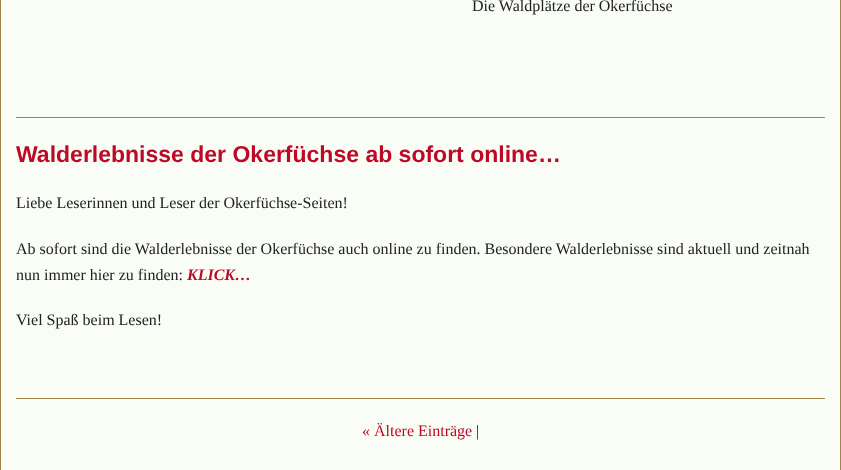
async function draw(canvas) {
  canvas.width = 841
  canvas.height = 470
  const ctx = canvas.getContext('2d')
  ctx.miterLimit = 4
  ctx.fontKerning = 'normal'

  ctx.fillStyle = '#f9fdf5'
  ctx.fillRect(0, 0, 841, 470)
  ctx.strokeStyle = '#9e8647'
  ctx.strokeRect(0.5, -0.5, 840, 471)
  ctx.font = '16px Liberation Serif'
  ctx.fillStyle = '#222'
  ctx.fillText('Die Waldplätze der Okerfüchse', 472, 11)
  ctx.fillStyle = '#9e8647'
  ctx.fillRect(16, 117, 809, 1)
  ctx.font = 'bold 23px Liberation Sans'
  ctx.fillStyle = '#bd0926'
  ctx.fillText('Walderlebnisse der Okerfüchse ab sofort online…', 16, 162)
  ctx.font = '16px Liberation Serif'
  ctx.fillStyle = '#222'
  ctx.fillText('Liebe Leserinnen und Leser der Okerfüchse-Seiten!', 16, 208)
  ctx.fillText('Ab sofort sind die Walderlebnisse der Okerfüchse auch online zu finden. Besondere Walderlebnisse sind aktuell und zeitnah', 16, 254)
  ctx.fillText('nun immer hier zu finden:', 16, 280)
  ctx.font = 'italic bold 16px Liberation Serif'
  ctx.fillStyle = '#bd0926'
  ctx.fillText('KLICK…', 187, 280)
  ctx.font = '16px Liberation Serif'
  ctx.fillStyle = '#222'
  ctx.fillText('Viel Spaß beim Lesen!', 16, 325)
  ctx.fillStyle = '#9e8647'
  ctx.fillRect(16, 398, 809, 1)
  ctx.fillStyle = '#bd0926'
  ctx.fillText('« Ältere Einträge', 362, 436)
  ctx.fillStyle = '#222'
  ctx.fillText('|', 476, 436)
}

draw(document.querySelector('canvas'))
